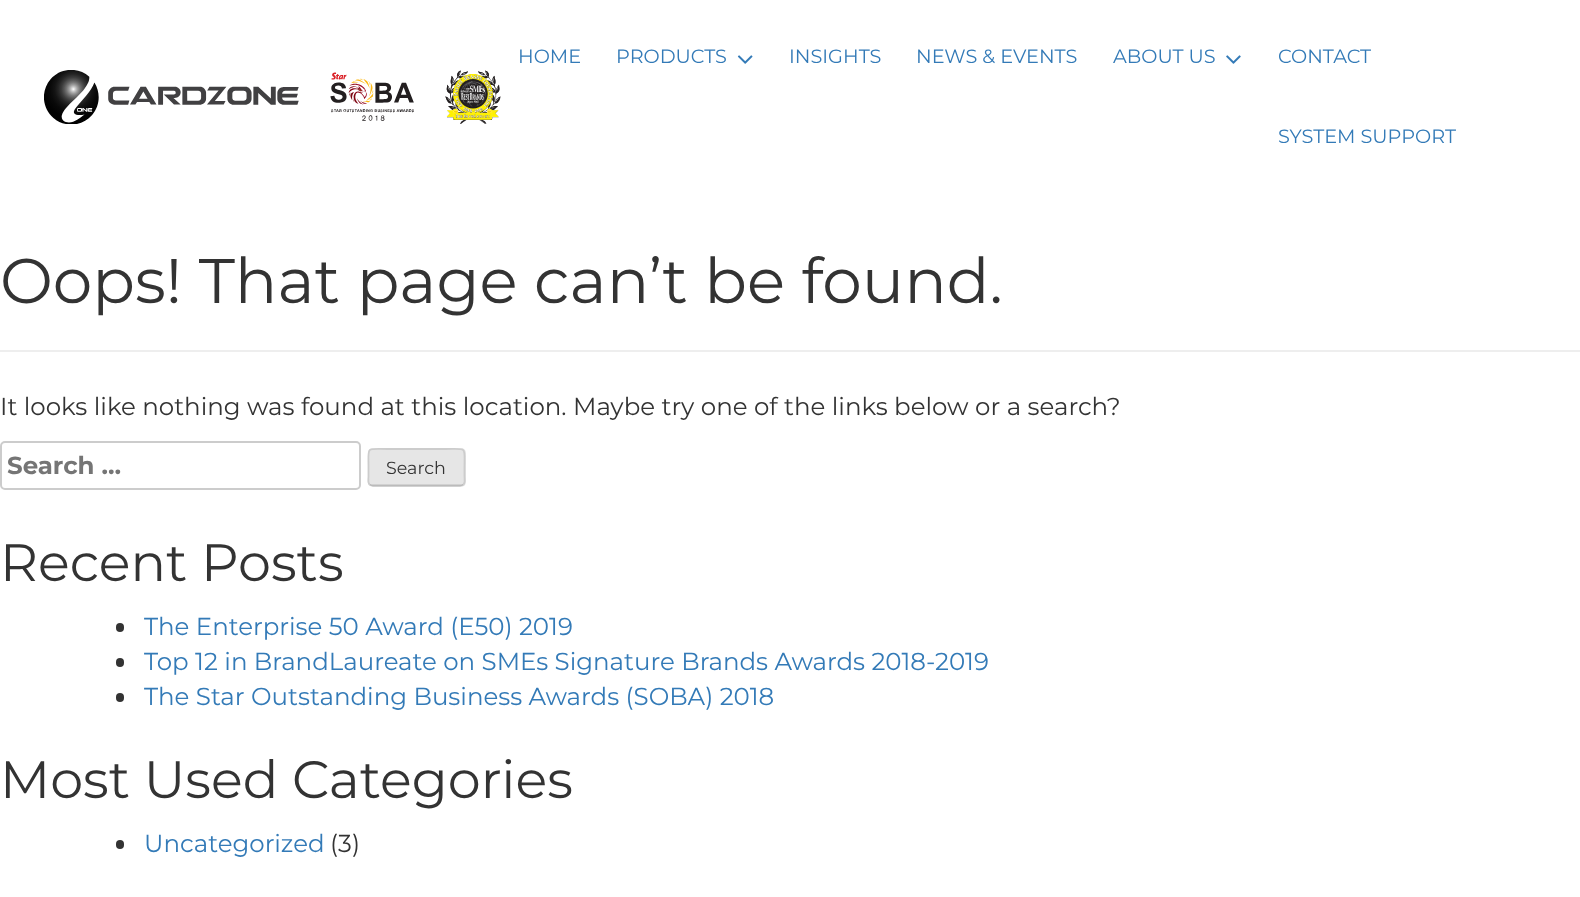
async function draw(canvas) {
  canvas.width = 1580
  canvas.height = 897
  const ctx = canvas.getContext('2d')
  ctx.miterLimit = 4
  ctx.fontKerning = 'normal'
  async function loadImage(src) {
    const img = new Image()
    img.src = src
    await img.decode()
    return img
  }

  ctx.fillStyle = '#fff'
  ctx.fillRect(0, 0, 1580, 897)
  ctx.drawImage(await loadImage('image0.png'), 44, 70, 457, 54)
  ctx.font = '19.25px Montserrat'
  ctx.fillStyle = '#337ab7'
  ctx.fillText('HOME', 518, 63)
  ctx.fillText('PRODUCTS', 616, 63)
  ctx.drawImage(await loadImage('image1.png'), 737, 55, 16, 9)
  ctx.fillText('INSIGHTS', 789, 63)
  ctx.fillText('NEWS & EVENTS', 916, 63)
  ctx.fillText('ABOUT US', 1113, 63)
  ctx.drawImage(await loadImage('image2.png'), 1226, 55, 15, 9)
  ctx.fillText('CONTACT', 1278, 63)
  ctx.fillText('SYSTEM SUPPORT', 1278, 143)
  ctx.fillStyle = '#eee'
  ctx.fillRect(0, 350, 1580, 2)
  ctx.font = '63px Montserrat'
  ctx.fillStyle = '#333'
  ctx.fillText('Oops! That page can’t be found.', 0, 303)
  ctx.font = '24.5px Montserrat'
  ctx.fillText('It looks like nothing was found at this location. Maybe try one of the links below or a search?', 0, 415)
  ctx.beginPath()
  ctx.roundRect(1, 442, 359, 47, 4)
  ctx.strokeStyle = '#ccc'
  ctx.lineWidth = 2
  ctx.stroke()
  ctx.font = 'bold 24.5px Montserrat'
  ctx.fillStyle = '#757575'
  ctx.fillText('Search …', 7, 474)
  ctx.fillStyle = '#e6e6e6'
  ctx.beginPath()
  ctx.roundRect(368, 448, 98, 39, 5)
  ctx.fill()
  ctx.beginPath()
  ctx.moveTo(463.5, 484.5)
  ctx.bezierCurveTo(462.5, 485, 461.5, 485.5, 460, 485.5)
  ctx.lineTo(373, 485.5)
  ctx.bezierCurveTo(371.5, 485.5, 370.5, 485, 369.5, 484.5)
  ctx.strokeStyle = '#bbb'
  ctx.lineWidth = 1.8
  ctx.stroke()
  ctx.beginPath()
  ctx.moveTo(369.5, 484.5)
  ctx.bezierCurveTo(367.5, 482.5, 368.5, 479, 368.5, 476.5)
  ctx.lineTo(368.5, 467)
  ctx.bezierCurveTo(368.5, 446, 365.5, 449, 387.5, 449)
  ctx.lineTo(445.5, 449)
  ctx.bezierCurveTo(467.5, 449, 464.5, 446, 464.5, 467)
  ctx.lineTo(464.5, 476.5)
  ctx.bezierCurveTo(464.5, 479, 465.5, 482.5, 463.5, 484.5)
  ctx.strokeStyle = '#ccc'
  ctx.stroke()
  ctx.font = '17.5px Montserrat'
  ctx.fillStyle = '#333'
  ctx.fillText('Search', 386, 474)
  ctx.font = '52.5px Montserrat'
  ctx.fillText('Recent Posts', 0, 581)
  ctx.beginPath()
  ctx.roundRect(116, 623, 8, 9, 4)
  ctx.fill()
  ctx.font = '24.5px Montserrat'
  ctx.fillStyle = '#337ab7'
  ctx.fillText('The Enterprise 50 Award (E50) 2019', 144, 635)
  ctx.fillStyle = '#333'
  ctx.beginPath()
  ctx.roundRect(116, 658, 8, 9, 4)
  ctx.fill()
  ctx.fillStyle = '#337ab7'
  ctx.fillText('Top 12 in BrandLaureate on SMEs Signature Brands Awards 2018-2019', 144, 670)
  ctx.fillStyle = '#333'
  ctx.beginPath()
  ctx.roundRect(116, 693, 8, 9, 4)
  ctx.fill()
  ctx.fillStyle = '#337ab7'
  ctx.fillText('The Star Outstanding Business Awards (SOBA) 2018', 144, 705)
  ctx.font = '52.5px Montserrat'
  ctx.fillStyle = '#333'
  ctx.fillText('Most Used Categories', 0, 798)
  ctx.beginPath()
  ctx.roundRect(116, 840, 8, 9, 4)
  ctx.fill()
  ctx.font = '24.5px Montserrat'
  ctx.fillStyle = '#337ab7'
  ctx.fillText('Uncategorized', 144, 852)
  ctx.fillStyle = '#333'
  ctx.fillText('(3)', 330, 852)
}

draw(document.querySelector('canvas'))
